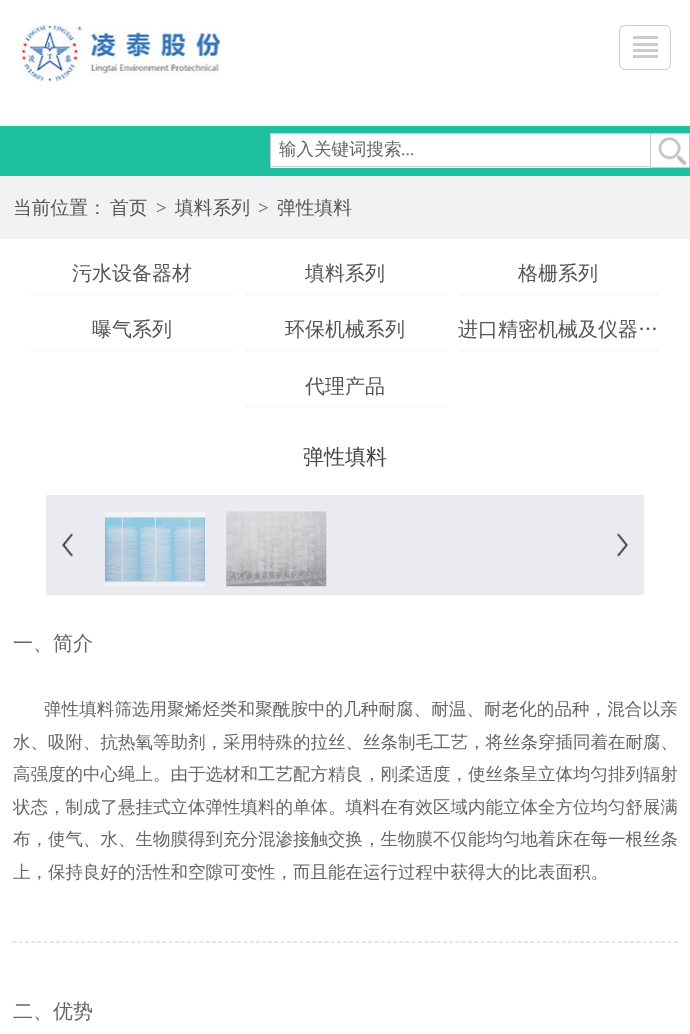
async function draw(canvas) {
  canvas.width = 690
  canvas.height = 1034
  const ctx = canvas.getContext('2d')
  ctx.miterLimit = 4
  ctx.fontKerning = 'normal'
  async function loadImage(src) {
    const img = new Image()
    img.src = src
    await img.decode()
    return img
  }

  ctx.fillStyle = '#fff'
  ctx.fillRect(0, 0, 690, 1034)
  ctx.drawImage(await loadImage('image0.png'), 19, 25, 201, 57)
  ctx.beginPath()
  ctx.roundRect(619.5, 25.5, 51, 44, 5.5)
  ctx.strokeStyle = '#ccc'
  ctx.stroke()
  ctx.fillStyle = '#ccc'
  ctx.fillRect(633, 36, 25, 3)
  ctx.fillRect(633, 43, 25, 3)
  ctx.fillRect(633, 49, 25, 3)
  ctx.fillRect(633, 55, 25, 3)
  ctx.fillStyle = '#1ebf9d'
  ctx.fillRect(0, 126, 690, 50)
  ctx.fillStyle = '#fff'
  ctx.fillRect(271, 134, 379, 34)
  ctx.fillStyle = '#ccc'
  ctx.fillRect(270, 133, 380, 1)
  ctx.fillRect(270, 166, 380, 1)
  ctx.fillRect(270, 133, 1, 35)
  ctx.font = '500 17.5px WenQuanYi Zen Hei'
  ctx.fillStyle = '#666'
  ctx.fillText('输入关键词搜索', 279, 155)
  ctx.font = '17.5px Liberation Serif'
  ctx.fillText('...', 401, 155)
  ctx.fillStyle = '#fff'
  ctx.fillRect(651, 134, 38, 33)
  ctx.drawImage(await loadImage('image1.png'), 658, 137, 29, 29)
  ctx.strokeRect(650.5, 133.5, 39, 34)
  ctx.fillStyle = '#f1f2f4'
  ctx.fillRect(0, 176, 690, 63)
  ctx.font = '500 18.75px WenQuanYi Zen Hei'
  ctx.fillStyle = '#555'
  ctx.fillText('当前位置：', 13, 214)
  ctx.fillText('首页', 110, 214)
  ctx.font = '18.75px Liberation Serif'
  ctx.fillText('>', 156, 214)
  ctx.font = '500 18.75px WenQuanYi Zen Hei'
  ctx.fillText('填料系列', 175, 214)
  ctx.font = '18.75px Liberation Serif'
  ctx.fillText('>', 258, 214)
  ctx.font = '500 18.75px WenQuanYi Zen Hei'
  ctx.fillText('弹性填料', 277, 214)
  ctx.fillStyle = '#f9f9f9'
  ctx.fillRect(31, 293, 202, 3)
  ctx.font = '500 20px WenQuanYi Zen Hei'
  ctx.fillStyle = '#555'
  ctx.fillText('污水设备器材', 72, 280)
  ctx.fillStyle = '#f9f9f9'
  ctx.fillRect(245, 293, 200, 3)
  ctx.fillStyle = '#555'
  ctx.fillText('填料系列', 305, 280)
  ctx.fillStyle = '#f9f9f9'
  ctx.fillRect(458, 293, 201, 3)
  ctx.fillStyle = '#555'
  ctx.fillText('格栅系列', 518, 280)
  ctx.fillStyle = '#f9f9f9'
  ctx.fillRect(31, 349, 202, 3)
  ctx.fillStyle = '#555'
  ctx.fillText('曝气系列', 92, 336)
  ctx.fillStyle = '#f9f9f9'
  ctx.fillRect(245, 349, 200, 3)
  ctx.fillStyle = '#555'
  ctx.fillText('环保机械系列', 285, 336)
  ctx.fillStyle = '#f9f9f9'
  ctx.fillRect(458, 349, 201, 3)
  ctx.fillStyle = '#555'
  ctx.fillText('进口精密机械及仪器…', 458, 336)
  ctx.fillStyle = '#f9f9f9'
  ctx.fillRect(245, 405, 200, 3)
  ctx.fillStyle = '#555'
  ctx.fillText('代理产品', 305, 393)
  ctx.font = '500 21px WenQuanYi Zen Hei'
  ctx.fillStyle = '#444'
  ctx.fillText('弹性填料', 303, 464)
  ctx.fillStyle = '#eaebf0'
  ctx.fillRect(46, 495, 598, 100)
  ctx.drawImage(await loadImage('image2.png'), 62, 533, 11, 24)
  ctx.drawImage(await loadImage('image3.png'), 105, 511, 100, 75)
  ctx.drawImage(await loadImage('image4.png'), 226, 511, 101, 76)
  ctx.drawImage(await loadImage('image5.png'), 617, 533, 11, 24)
  ctx.font = '500 20px WenQuanYi Zen Hei'
  ctx.fillStyle = '#666'
  ctx.fillText('一、简介', 13, 650)
  ctx.letterSpacing = '0.1px'
  ctx.font = '500 17.5px WenQuanYi Zen Hei'
  ctx.fillText('弹性填料筛选用聚烯烃类和聚酰胺中的几种耐腐、耐温、耐老化的品种，混合以亲', 44, 715)
  ctx.letterSpacing = '0px'
  ctx.fillText('水、吸附、抗热氧等助剂，采用特殊的拉丝、丝条制毛工艺，将丝条穿插同着在耐腐、', 13, 748)
  ctx.fillText('高强度的中心绳上。由于选材和工艺配方精良，刚柔适度，使丝条呈立体均匀排列辐射', 13, 780)
  ctx.fillText('状态，制成了悬挂式立体弹性填料的单体。填料在有效区域内能立体全方位均匀舒展满', 13, 813)
  ctx.fillText('布，使气、水、生物膜得到充分混渗接触交换，生物膜不仅能均匀地着床在每一根丝条', 13, 845)
  ctx.fillText('上，保持良好的活性和空隙可变性，而且能在运行过程中获得大的比表面积。', 13, 878)
  ctx.beginPath()
  ctx.moveTo(12.5, 942)
  ctx.lineTo(677.5, 942)
  ctx.lineWidth = 1.2
  ctx.setLineDash([3.75, 2.49])
  ctx.stroke()
  ctx.font = '500 20px WenQuanYi Zen Hei'
  ctx.fillText('二、优势', 13, 1018)
}

draw(document.querySelector('canvas'))
